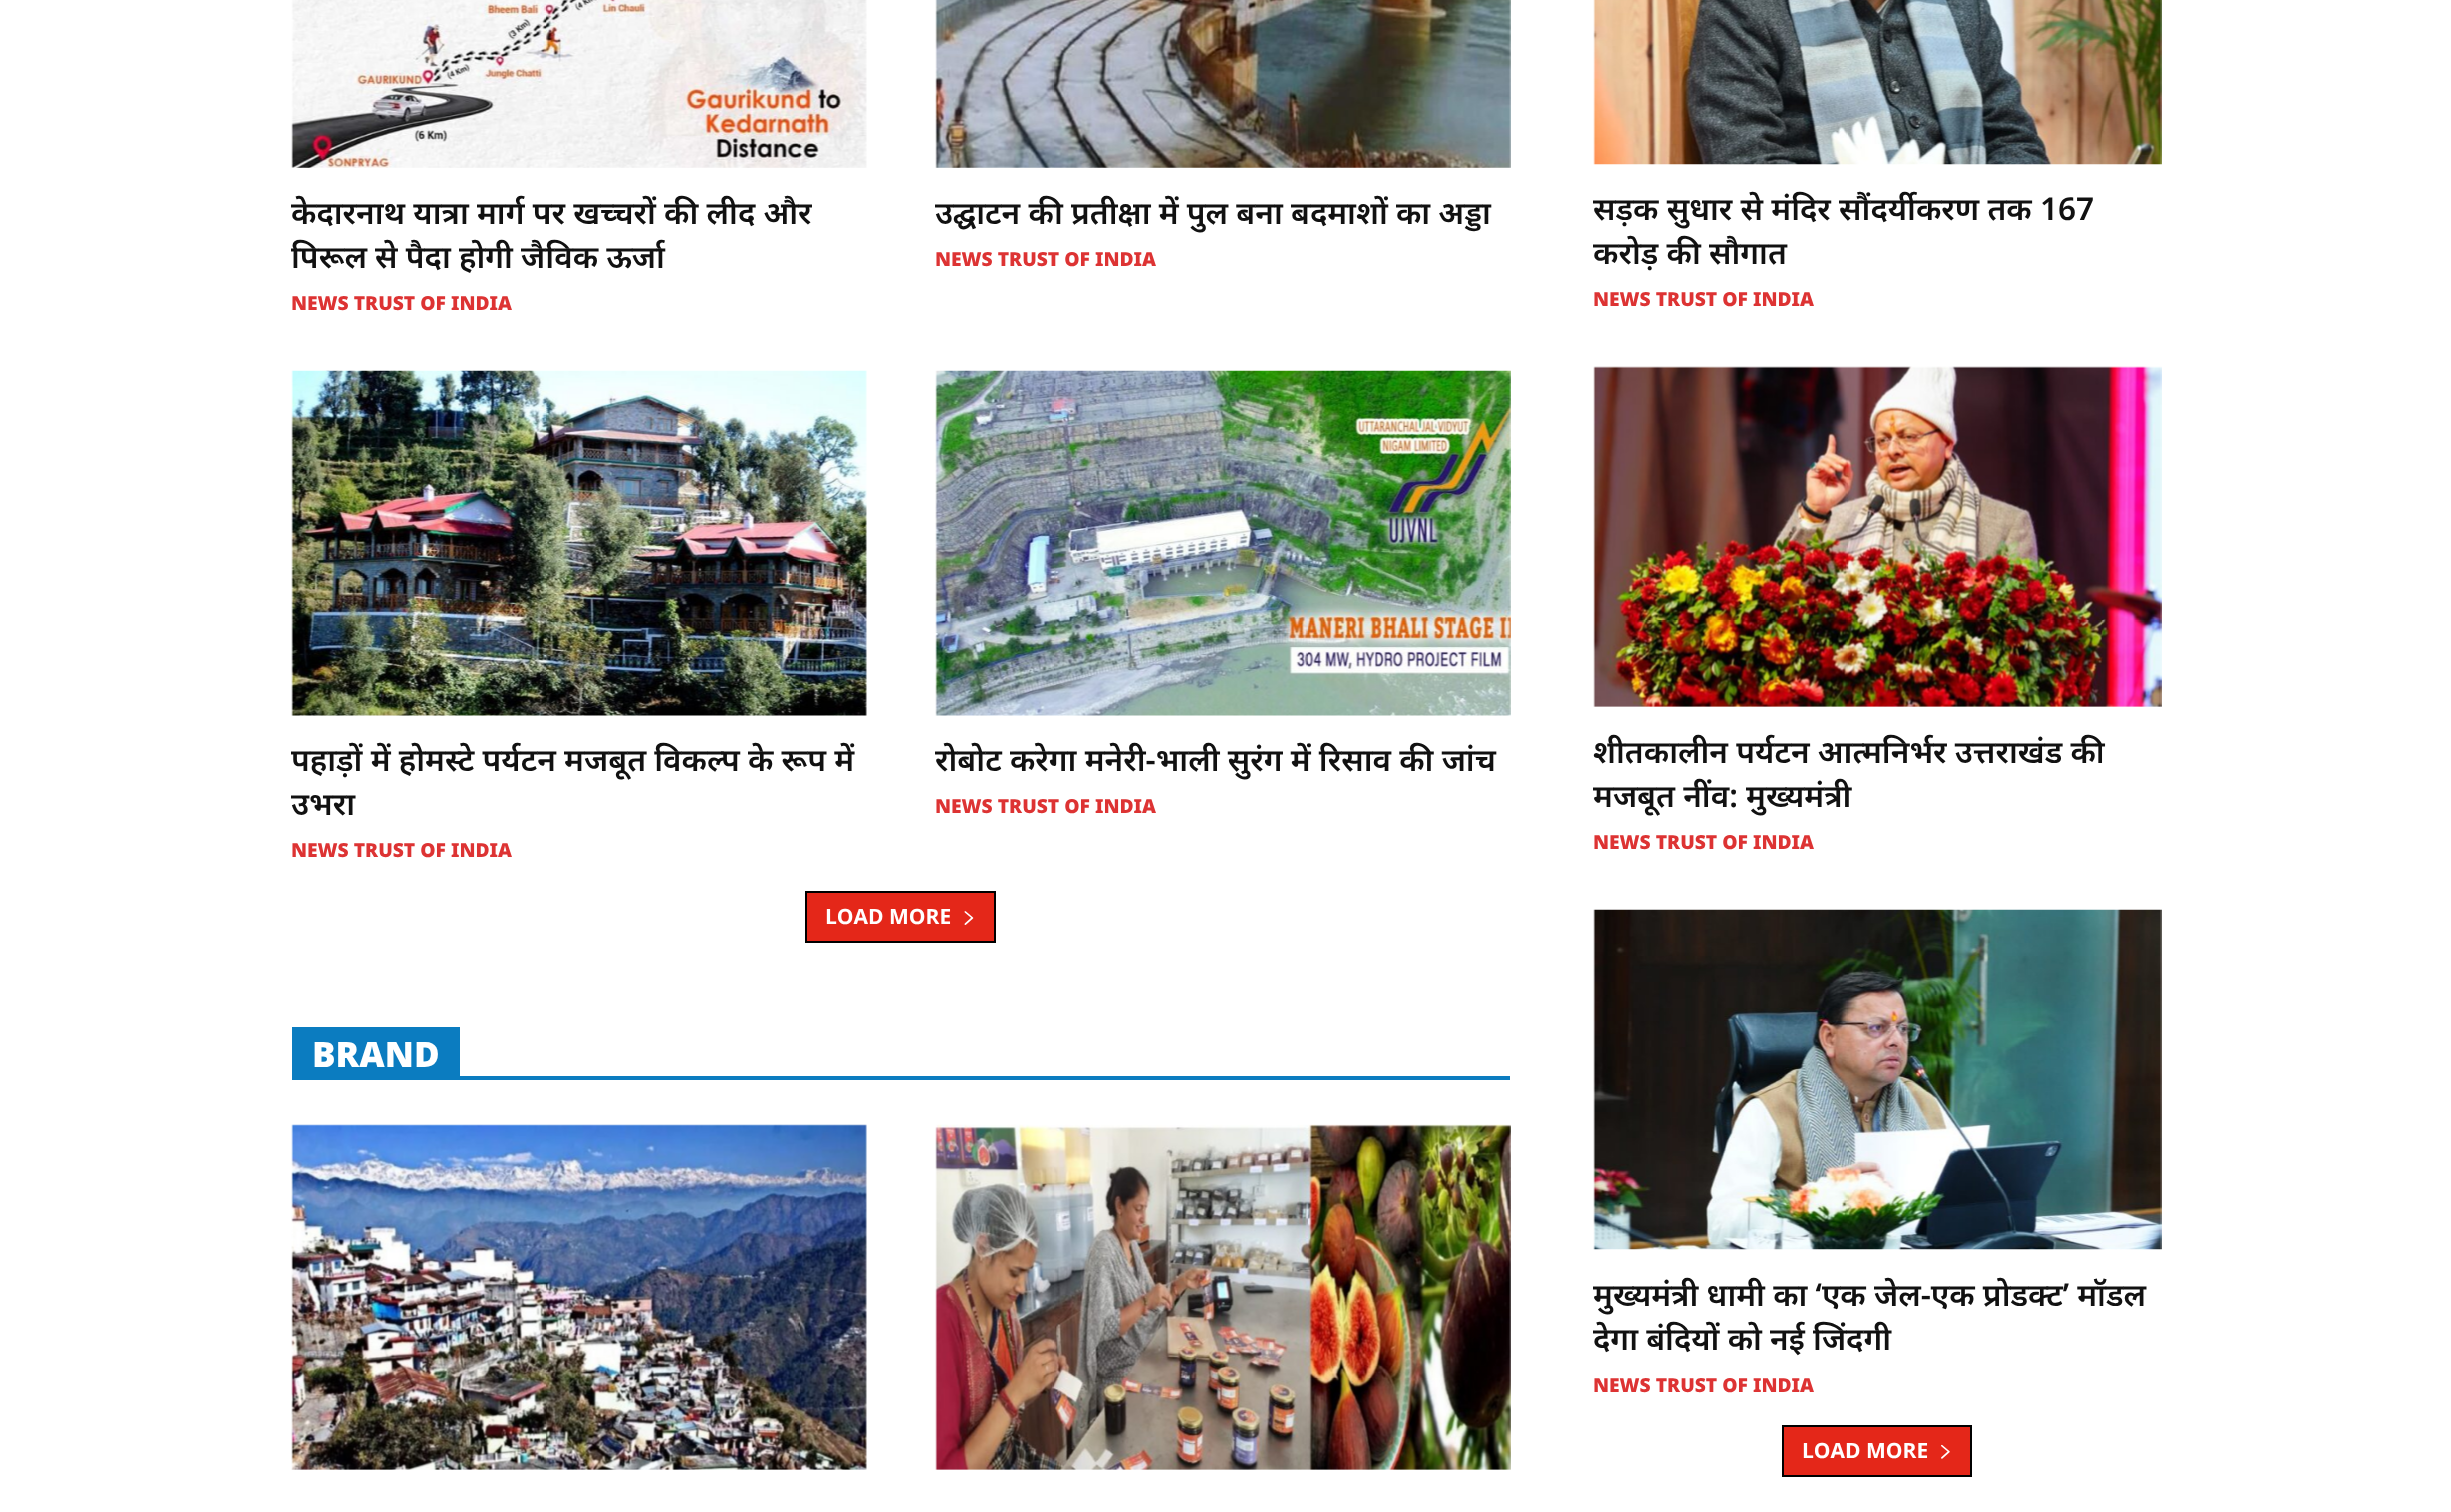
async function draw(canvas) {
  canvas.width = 2451
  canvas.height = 1512
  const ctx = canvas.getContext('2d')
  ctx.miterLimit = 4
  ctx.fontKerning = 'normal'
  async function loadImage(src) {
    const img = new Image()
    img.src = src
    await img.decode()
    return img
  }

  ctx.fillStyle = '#fff'
  ctx.fillRect(0, 0, 2451, 1512)
  ctx.drawImage(await loadImage('image0.png'), 291, 0, 576, 168)
  ctx.font = '600 31.5px Noto Sans'
  ctx.fillStyle = '#111'
  ctx.fillText('केदारनाथ यात्रा मार्ग पर खच्चरों की लीद और', 291, 224)
  ctx.fillText('पिरूल से पैदा होगी जैविक ऊर्जा', 291, 268)
  ctx.font = '900 19.25px Noto Sans'
  ctx.fillStyle = '#d33'
  ctx.fillText('NEWS TRUST OF INDIA', 291, 310)
  ctx.drawImage(await loadImage('image1.png'), 935, 0, 576, 168)
  ctx.font = '600 31.5px Noto Sans'
  ctx.fillStyle = '#111'
  ctx.fillText('उद्घाटन की प्रतीक्षा में पुल बना बदमाशों का अड्डा', 935, 224)
  ctx.font = '900 19.25px Noto Sans'
  ctx.fillStyle = '#d33'
  ctx.fillText('NEWS TRUST OF INDIA', 935, 266)
  ctx.drawImage(await loadImage('image2.png'), 291, 370, 576, 346)
  ctx.font = '600 31.5px Noto Sans'
  ctx.fillStyle = '#111'
  ctx.fillText('पहाड़ों में होमस्टे पर्यटन मजबूत विकल्प के रूप में', 291, 771)
  ctx.fillText('उभरा', 291, 815)
  ctx.font = '900 19.25px Noto Sans'
  ctx.fillStyle = '#d33'
  ctx.fillText('NEWS TRUST OF INDIA', 291, 857)
  ctx.drawImage(await loadImage('image3.png'), 935, 370, 576, 346)
  ctx.font = '600 31.5px Noto Sans'
  ctx.fillStyle = '#111'
  ctx.fillText('रोबोट करेगा मनेरी-भाली सुरंग में रिसाव की जांच', 935, 771)
  ctx.font = '900 19.25px Noto Sans'
  ctx.fillStyle = '#d33'
  ctx.fillText('NEWS TRUST OF INDIA', 935, 813)
  ctx.fillStyle = '#e42719'
  ctx.beginPath()
  ctx.rect(806, 892, 189, 50)
  ctx.fill()
  ctx.strokeStyle = '#000'
  ctx.lineWidth = 2
  ctx.stroke()
  ctx.font = 'bold 21px Open Sans'
  ctx.fillStyle = '#fff'
  ctx.fillText('LOAD MORE', 825, 924)
  ctx.drawImage(await loadImage('image4.png'), 964, 911, 10, 14)
  ctx.fillStyle = '#0b7cc0'
  ctx.fillRect(292, 1076, 1218, 4)
  ctx.fillRect(292, 1027, 168, 49)
  ctx.font = '900 35px Noto Sans'
  ctx.fillStyle = '#fff'
  ctx.fillText('BRAND', 312, 1067)
  ctx.drawImage(await loadImage('image5.png'), 291, 1124, 576, 346)
  ctx.drawImage(await loadImage('image6.png'), 935, 1124, 576, 346)
  ctx.drawImage(await loadImage('image7.png'), 1593, 0, 569, 165)
  ctx.font = '600 31.5px Noto Sans'
  ctx.fillStyle = '#111'
  ctx.fillText('सड़क सुधार से मंदिर सौंदर्यीकरण तक 167', 1593, 220)
  ctx.fillText('करोड़ की सौगात', 1593, 264)
  ctx.font = '900 19.25px Noto Sans'
  ctx.fillStyle = '#d33'
  ctx.fillText('NEWS TRUST OF INDIA', 1593, 306)
  ctx.drawImage(await loadImage('image8.png'), 1593, 366, 569, 341)
  ctx.font = '600 31.5px Noto Sans'
  ctx.fillStyle = '#111'
  ctx.fillText('शीतकालीन पर्यटन आत्मनिर्भर उत्तराखंड की', 1593, 763)
  ctx.fillText('मजबूत नींव: मुख्यमंत्री', 1593, 807)
  ctx.font = '900 19.25px Noto Sans'
  ctx.fillStyle = '#d33'
  ctx.fillText('NEWS TRUST OF INDIA', 1593, 849)
  ctx.drawImage(await loadImage('image9.png'), 1593, 909, 569, 341)
  ctx.font = '600 31.5px Noto Sans'
  ctx.fillStyle = '#111'
  ctx.fillText('मुख्यमंत्री धामी का ‘एक जेल-एक प्रोडक्ट’ मॉडल', 1593, 1306)
  ctx.fillText('देगा बंदियों को नई जिंदगी', 1593, 1350)
  ctx.font = '900 19.25px Noto Sans'
  ctx.fillStyle = '#d33'
  ctx.fillText('NEWS TRUST OF INDIA', 1593, 1392)
  ctx.fillStyle = '#e42719'
  ctx.beginPath()
  ctx.rect(1783, 1426, 188, 50)
  ctx.fill()
  ctx.stroke()
  ctx.font = 'bold 21px Open Sans'
  ctx.fillStyle = '#fff'
  ctx.fillText('LOAD MORE', 1802, 1458)
  ctx.drawImage(await loadImage('image10.png'), 1941, 1444, 9, 15)
}

draw(document.querySelector('canvas'))
